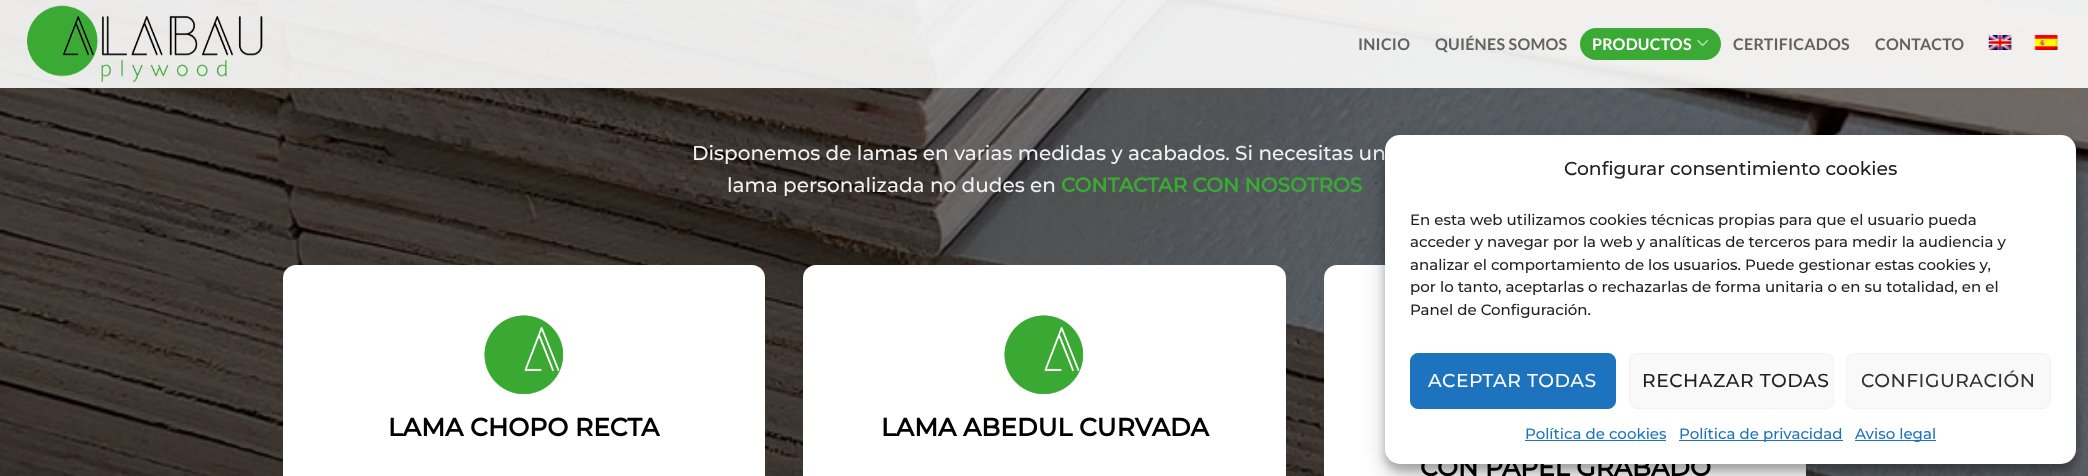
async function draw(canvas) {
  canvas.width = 2088
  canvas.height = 476
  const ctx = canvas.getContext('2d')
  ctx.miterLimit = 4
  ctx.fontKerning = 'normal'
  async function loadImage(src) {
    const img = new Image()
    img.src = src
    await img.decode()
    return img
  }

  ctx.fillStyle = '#fff'
  ctx.fillRect(0, 0, 2088, 476)
  ctx.drawImage(await loadImage('image4.png'), 0, 0, 2088, 476)
  ctx.fillStyle = '#ffffffe6'
  ctx.fillRect(0, 0, 2088, 88)
  ctx.drawImage(await loadImage('image0.png'), 27, 5, 236, 78)
  ctx.letterSpacing = '0.25px'
  ctx.font = 'bold 16px Lato'
  ctx.fillStyle = '#636363'
  ctx.fillText('INICIO', 1358, 50)
  ctx.fillText('QUIÉNES SOMOS', 1435, 50)
  ctx.fillStyle = '#3aaa35'
  ctx.beginPath()
  ctx.roundRect(1580, 28, 141, 32, 16)
  ctx.fill()
  ctx.fillStyle = '#fff'
  ctx.fillText('PRODUCTOS', 1592, 50)
  ctx.drawImage(await loadImage('image1.png'), 1697, 39, 12, 8)
  ctx.fillStyle = '#636363'
  ctx.fillText('CERTIFICADOS', 1733, 50)
  ctx.fillText('CONTACTO', 1875, 50)
  ctx.drawImage(await loadImage('image2.png'), 1988, 35, 24, 15)
  ctx.drawImage(await loadImage('image3.png'), 2034, 35, 24, 15)
  ctx.fillStyle = '#4a4a4a1a'
  ctx.fillRect(67, 88, 2003, 1)
  ctx.letterSpacing = '0px'
  ctx.font = '100 20px Montserrat'
  ctx.fillStyle = '#f1f1f1'
  ctx.fillText('Disponemos de lamas en varias medidas y acabados. Si necesitas un', 692, 160)
  ctx.fillText('lama personalizada no dudes en', 727, 192)
  ctx.font = 'bold 20px Montserrat'
  ctx.fillStyle = '#3aaa35'
  ctx.fillText('CONTACTAR CON NOSOTROS', 1061, 192)
  ctx.fillStyle = '#fff'
  ctx.beginPath()
  ctx.roundRect(283, 265, 482, 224, 13)
  ctx.fill()
  ctx.drawImage(await loadImage('image5.png'), 484, 315, 80, 80)
  ctx.font = 'bold 25px Montserrat'
  ctx.fillStyle = '#000'
  ctx.fillText('LAMA CHOPO RECTA', 388, 436)
  ctx.fillStyle = '#fff'
  ctx.beginPath()
  ctx.roundRect(803, 265, 483, 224, 13)
  ctx.fill()
  ctx.drawImage(await loadImage('image5.png'), 1004, 315, 80, 80)
  ctx.fillStyle = '#000'
  ctx.fillText('LAMA ABEDUL CURVADA', 881, 436)
  ctx.fillStyle = '#fff'
  ctx.beginPath()
  ctx.roundRect(1324, 265, 482, 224, 13)
  ctx.fill()
  ctx.fillStyle = '#000'
  ctx.fillText('CON PAPEL GRABADO', 1420, 476)
  ctx.fillStyle = '#0000003b'
  ctx.filter = 'blur(4px)'
  ctx.beginPath()
  ctx.roundRect(1385, 143, 691, 328, 15)
  ctx.fill()
  ctx.filter = 'none'
  ctx.fillStyle = '#00000030'
  ctx.filter = 'blur(12.5px)'
  ctx.beginPath()
  ctx.roundRect(1385, 148, 691, 328, 15)
  ctx.fill()
  ctx.filter = 'none'
  ctx.fillStyle = '#fff'
  ctx.beginPath()
  ctx.roundRect(1385, 135, 691, 329, 15)
  ctx.fill()
  ctx.font = '100 18.75px Montserrat'
  ctx.fillStyle = '#222'
  ctx.fillText('Configurar consentimiento cookies', 1564, 175)
  ctx.font = '100 15px Montserrat'
  ctx.fillText('En esta web utilizamos cookies técnicas propias para que el usuario pueda', 1410, 225)
  ctx.fillText('acceder y navegar por la web y analíticas de terceros para medir la audiencia y', 1410, 247)
  ctx.fillText('analizar el comportamiento de los usuarios. Puede gestionar estas cookies y,', 1410, 270)
  ctx.fillText('por lo tanto, aceptarlas o rechazarlas de forma unitaria o en su totalidad, en el', 1410, 292)
  ctx.fillText('Panel de Configuración.', 1410, 315)
  ctx.fillStyle = '#1e73be'
  ctx.beginPath()
  ctx.roundRect(1410.5, 353.5, 205, 55, 7.5)
  ctx.fill()
  ctx.strokeStyle = '#1e73be'
  ctx.stroke()
  ctx.letterSpacing = '0.5px'
  ctx.font = '100 18.75px Montserrat'
  ctx.fillStyle = '#fff'
  ctx.fillText('ACEPTAR TODAS', 1428, 387)
  ctx.fillStyle = '#f9f9f9'
  ctx.beginPath()
  ctx.roundRect(1629.5, 353.5, 204, 55, 7.5)
  ctx.fill()
  ctx.strokeStyle = '#f2f2f2'
  ctx.stroke()
  ctx.fillStyle = '#222'
  ctx.fillText('RECHAZAR TODAS', 1642, 387)
  ctx.fillStyle = '#f9f9f9'
  ctx.beginPath()
  ctx.roundRect(1846.5, 353.5, 204, 55, 7.5)
  ctx.fill()
  ctx.stroke()
  ctx.fillStyle = '#333'
  ctx.fillText('CONFIGURACIÓN', 1861, 387)
  ctx.letterSpacing = '0px'
  ctx.font = '100 15px Montserrat'
  ctx.fillStyle = '#1e73be'
  ctx.fillText('Política de cookies', 1525, 439)
  ctx.fillRect(1525, 440, 141, 1)
  ctx.fillRect(1679, 440, 164, 1)
  ctx.fillText('Política de privacidad', 1679, 439)
  ctx.fillRect(1855, 440, 81, 1)
  ctx.fillText('Aviso legal', 1855, 439)
}

draw(document.querySelector('canvas'))
